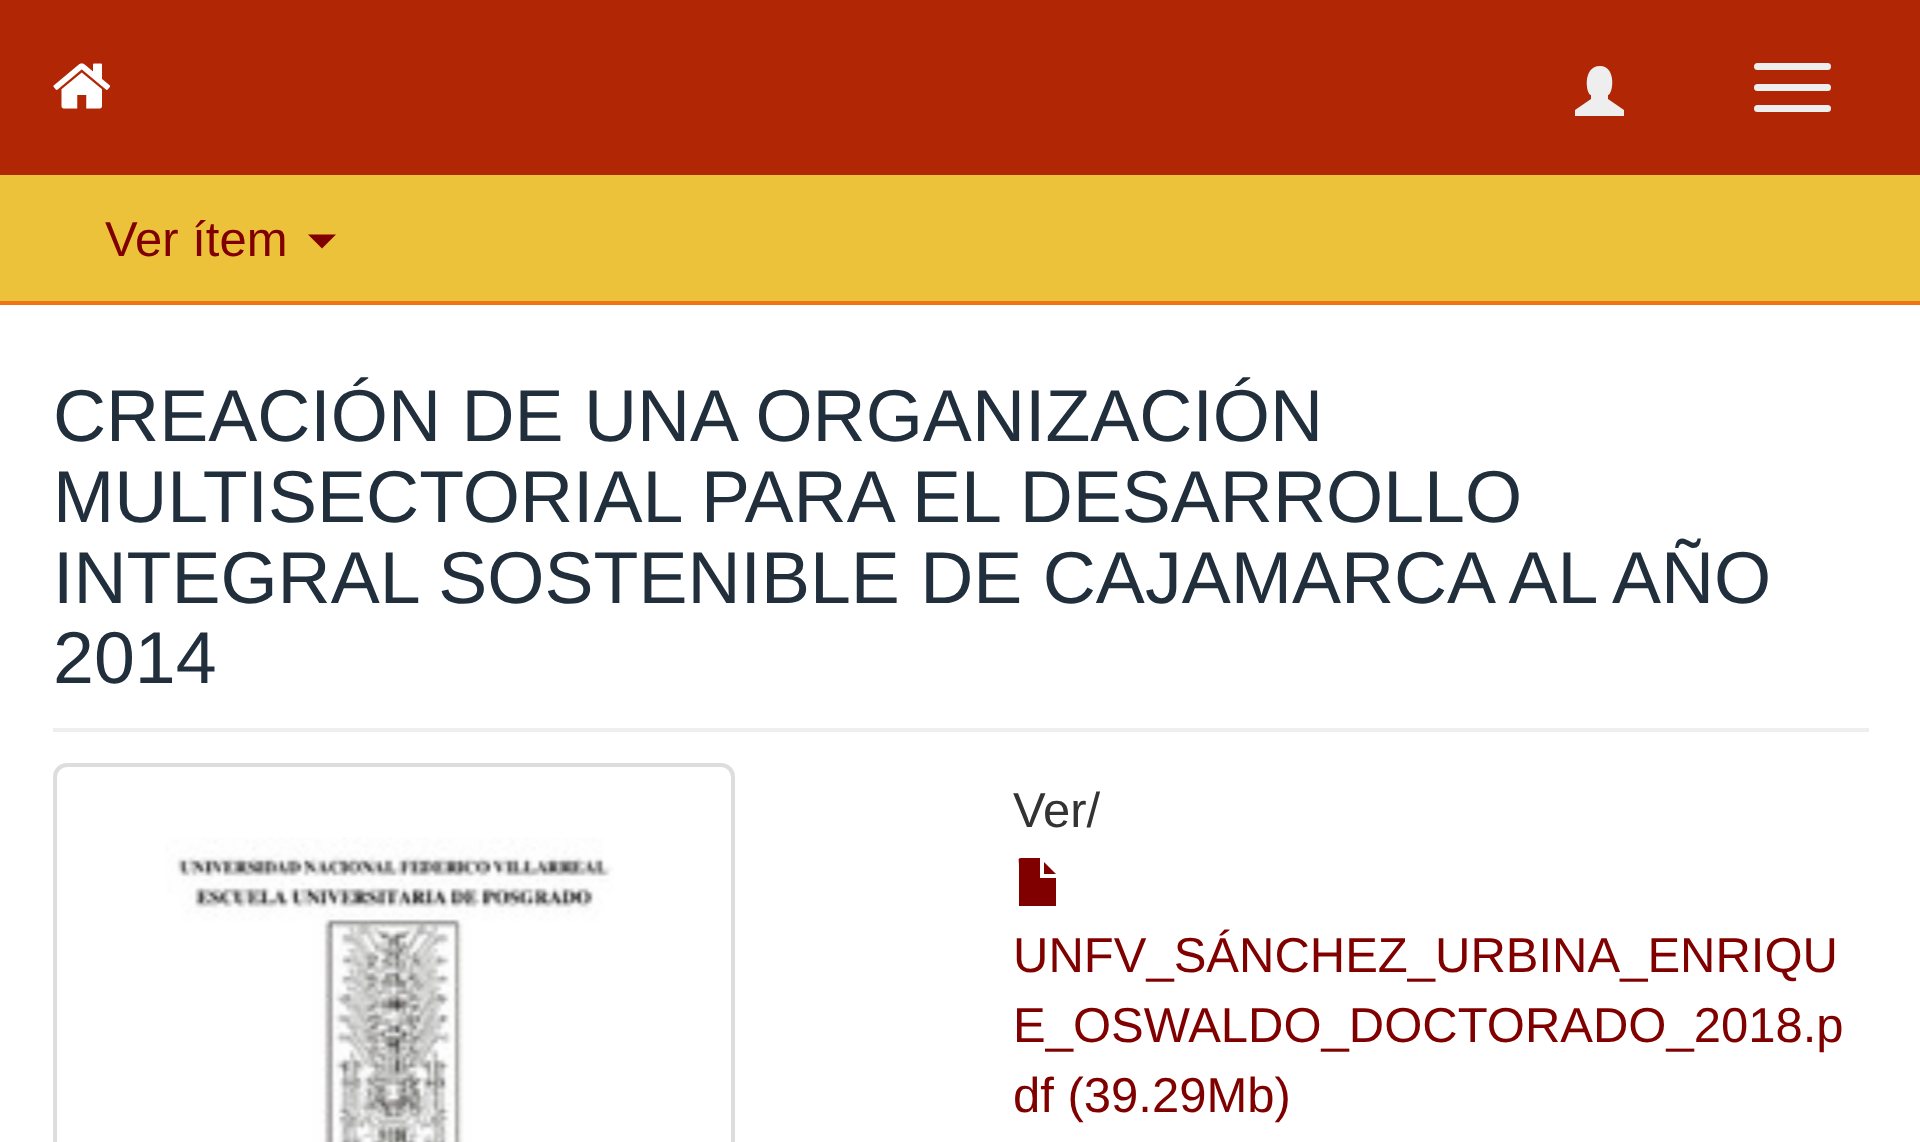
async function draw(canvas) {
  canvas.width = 1920
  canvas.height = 1142
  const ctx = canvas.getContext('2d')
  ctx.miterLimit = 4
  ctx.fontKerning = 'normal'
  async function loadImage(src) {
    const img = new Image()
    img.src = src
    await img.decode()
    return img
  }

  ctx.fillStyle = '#fff'
  ctx.fillRect(0, 0, 1920, 1142)
  ctx.fillStyle = '#b12604'
  ctx.fillRect(0, 0, 1920, 175)
  ctx.drawImage(await loadImage('image0.png'), 53, 63, 58, 46)
  ctx.fillStyle = '#eee'
  ctx.beginPath()
  ctx.moveTo(1575, 116)
  ctx.lineTo(1575, 110)
  ctx.lineTo(1591, 99)
  ctx.lineTo(1591, 95)
  ctx.bezierCurveTo(1586, 95, 1582, 66, 1600, 66)
  ctx.bezierCurveTo(1617, 66, 1613, 95, 1608, 95)
  ctx.lineTo(1608, 99)
  ctx.lineTo(1624, 110)
  ctx.lineTo(1624, 116)
  ctx.closePath()
  ctx.fill()
  ctx.beginPath()
  ctx.roundRect(1754, 63, 77, 7, 3.5)
  ctx.fill()
  ctx.beginPath()
  ctx.roundRect(1754, 84, 77, 7, 3.5)
  ctx.fill()
  ctx.beginPath()
  ctx.roundRect(1754, 105, 77, 7, 3.5)
  ctx.fill()
  ctx.fillStyle = '#ebc23a'
  ctx.fillRect(0, 175, 1920, 126)
  ctx.fillStyle = '#f07613'
  ctx.fillRect(0, 301, 1920, 4)
  ctx.font = '49px Liberation Sans'
  ctx.fillStyle = '#800000'
  ctx.fillText('Ver ítem', 105, 256)
  ctx.beginPath()
  ctx.moveTo(308, 234.5)
  ctx.lineTo(336, 234.5)
  ctx.lineTo(322, 248.5)
  ctx.closePath()
  ctx.fill()
  ctx.fillStyle = '#eee'
  ctx.fillRect(53, 728, 1816, 4)
  ctx.font = '73.5px Liberation Sans'
  ctx.fillStyle = '#212f3c'
  ctx.fillText('CREACIÓN DE UNA ORGANIZACIÓN', 53, 441)
  ctx.fillText('MULTISECTORIAL PARA EL DESARROLLO', 53, 522)
  ctx.fillText('INTEGRAL SOSTENIBLE DE CAJAMARCA AL AÑO', 53, 603)
  ctx.fillText('2014', 53, 683)
  ctx.beginPath()
  ctx.roundRect(55, 765, 678, 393, 12)
  ctx.strokeStyle = '#ddd'
  ctx.lineWidth = 4
  ctx.stroke()
  ctx.drawImage(await loadImage('image1.png'), 165, 837, 449, 305)
  ctx.font = '49px Liberation Sans'
  ctx.fillStyle = '#333'
  ctx.fillText('Ver/', 1013, 827)
  ctx.fillStyle = '#800000'
  ctx.beginPath()
  ctx.moveTo(1019, 905)
  ctx.lineTo(1019, 866)
  ctx.bezierCurveTo(1019, 858, 1017, 858, 1023, 858)
  ctx.lineTo(1040, 858)
  ctx.lineTo(1040, 878)
  ctx.lineTo(1056, 878)
  ctx.lineTo(1056, 906)
  ctx.lineTo(1055, 906)
  ctx.lineTo(1019, 906)
  ctx.closePath()
  ctx.moveTo(1044, 874)
  ctx.lineTo(1044, 862)
  ctx.lineTo(1056, 874)
  ctx.closePath()
  ctx.fill()
  ctx.fillText('UNFV_SÁNCHEZ_URBINA_ENRIQU', 1013, 972)
  ctx.fillText('E_OSWALDO_DOCTORADO_2018.p', 1013, 1042)
  ctx.fillText('df (39.29Mb)', 1013, 1112)
}

draw(document.querySelector('canvas'))
